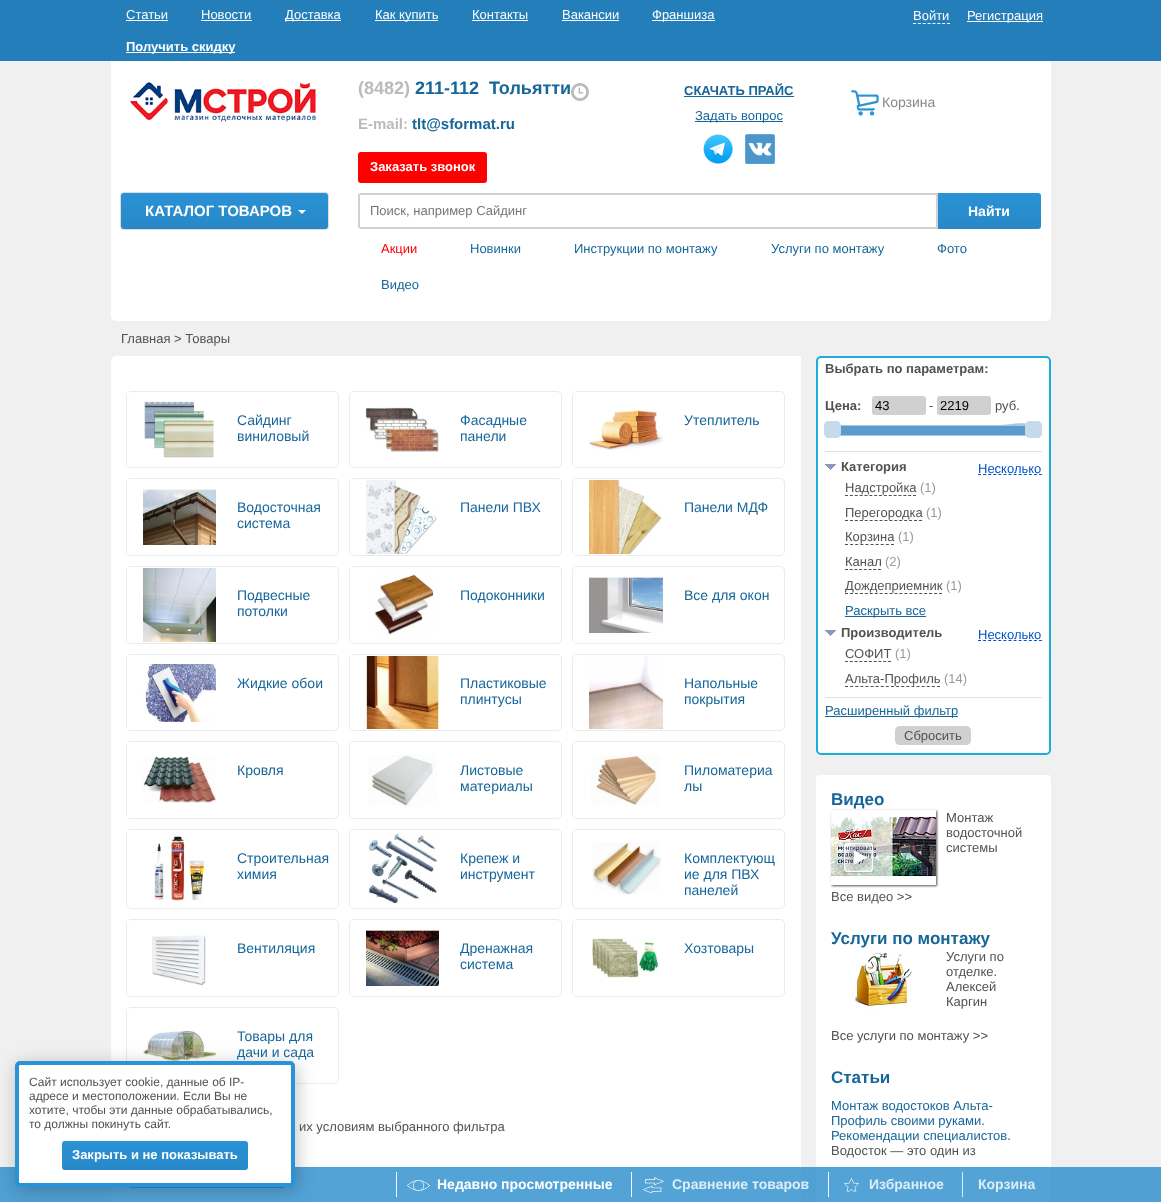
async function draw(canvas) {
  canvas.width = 1161
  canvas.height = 1202
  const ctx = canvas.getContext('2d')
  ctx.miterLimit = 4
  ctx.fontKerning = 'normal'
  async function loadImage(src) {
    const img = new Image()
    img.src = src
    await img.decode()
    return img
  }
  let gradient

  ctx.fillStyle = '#f0f0f0'
  ctx.fillRect(0, 0, 1161, 1202)
  ctx.fillStyle = '#247eb9'
  ctx.fillRect(0, 0, 1161, 61)
  ctx.font = '13px Liberation Sans'
  ctx.fillStyle = '#fff'
  ctx.fillText('Статьи', 126, 19)
  ctx.fillRect(126, 20, 42, 1)
  ctx.fillText('Новости', 201, 19)
  ctx.fillRect(201, 20, 51, 1)
  ctx.fillRect(285, 20, 56, 1)
  ctx.fillText('Доставка', 285, 19)
  ctx.fillRect(375, 20, 63, 1)
  ctx.fillText('Как купить', 375, 19)
  ctx.fillText('Контакты', 472, 19)
  ctx.fillRect(472, 20, 56, 1)
  ctx.fillText('Вакансии', 562, 19)
  ctx.fillRect(562, 20, 57, 1)
  ctx.fillRect(652, 20, 63, 1)
  ctx.fillText('Франшиза', 652, 19)
  ctx.fillRect(126, 52, 109, 1)
  ctx.font = 'bold 13px Liberation Sans'
  ctx.fillText('Получить скидку', 126, 51)
  ctx.beginPath()
  ctx.moveTo(913, 23.5)
  ctx.lineTo(950, 23.5)
  ctx.strokeStyle = '#fff'
  ctx.setLineDash([3, 1.86])
  ctx.stroke()
  ctx.font = '13px Liberation Sans'
  ctx.fillText('Войти', 913, 20)
  ctx.fillRect(967, 21, 76, 1)
  ctx.fillText('Регистрация', 967, 20)
  ctx.beginPath()
  ctx.roundRect(111, 61, 940, 260, [0, 0, 5, 5])
  ctx.fill()
  ctx.drawImage(await loadImage('image0.png'), 130, 82, 187, 40)
  ctx.font = 'bold 18px Liberation Sans'
  ctx.fillStyle = '#bbb'
  ctx.fillText('(8482)', 358, 94)
  ctx.fillStyle = '#166699'
  ctx.fillText('211-112', 415, 94)
  ctx.fillText('Тольятти', 489, 94)
  ctx.drawImage(await loadImage('image1.png'), 571, 83, 18, 18)
  ctx.font = 'bold 15px Liberation Sans'
  ctx.fillStyle = '#bbb'
  ctx.fillText('E-mail:', 358, 129)
  ctx.fillStyle = '#166699'
  ctx.fillText('tlt@sformat.ru', 412, 129)
  ctx.fillStyle = '#f00'
  ctx.beginPath()
  ctx.roundRect(358, 152, 129, 31, 3)
  ctx.fill()
  ctx.font = 'bold 13px Liberation Sans'
  ctx.fillStyle = '#fff'
  ctx.fillText('Заказать звонок', 370, 171)
  ctx.fillStyle = '#166699'
  ctx.fillText('СКАЧАТЬ ПРАЙС', 684, 95)
  ctx.fillRect(684, 96, 110, 1)
  ctx.fillRect(695, 121, 88, 1)
  ctx.font = '13px Liberation Sans'
  ctx.fillText('Задать вопрос', 695, 120)
  ctx.drawImage(await loadImage('image2.png'), 703, 134, 30, 30)
  ctx.drawImage(await loadImage('image3.png'), 745, 134, 30, 30)
  ctx.drawImage(await loadImage('image4.png'), 851, 90, 28, 26)
  ctx.font = '14px Liberation Sans'
  ctx.fillStyle = '#888'
  ctx.fillText('Корзина', 882, 107)
  ctx.fillStyle = '#fff'
  ctx.beginPath()
  ctx.roundRect(111, 356, 690, 743, [5, 0, 0, 0])
  ctx.fill()
  ctx.beginPath()
  ctx.roundRect(126.5, 1007.5, 212, 76, 4.5)
  ctx.strokeStyle = '#e9ebed'
  ctx.setLineDash([])
  ctx.stroke()
  ctx.beginPath()
  ctx.roundRect(127.5, 1008.5, 104, 74, 2.5)
  ctx.fill()
  ctx.strokeStyle = '#fff'
  ctx.stroke()
  ctx.drawImage(await loadImage('image26.png'), 143, 1030, 73, 31)
  ctx.fillRect(111, 1099, 690, 103)
  gradient = ctx.createLinearGradient(207, 1188, 207, 1144)
  gradient.addColorStop(0, '#2788c7')
  gradient.addColorStop(1, '#2a92d6')
  ctx.fillStyle = gradient
  ctx.beginPath()
  ctx.roundRect(126, 1144, 162, 44, 6)
  ctx.fill()
  ctx.fillStyle = '#fff'
  ctx.beginPath()
  ctx.moveTo(819, 775)
  ctx.lineTo(1048, 775)
  ctx.bezierCurveTo(1049.5, 775, 1051, 776.5, 1051, 778)
  ctx.lineTo(1051, 1202)
  ctx.bezierCurveTo(1051, 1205, 1049, 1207, 1046, 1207)
  ctx.lineTo(816, 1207)
  ctx.lineTo(816, 778)
  ctx.bezierCurveTo(816, 776.5, 817.5, 775, 819, 775)
  ctx.closePath()
  ctx.fill()
  ctx.fillStyle = '#288ccdcc'
  ctx.fillRect(0, 1167, 1161, 35)
  ctx.fillStyle = '#0000003b'
  ctx.filter = 'blur(9px)'
  ctx.beginPath()
  ctx.roundRect(17, 1064, 280, 126, 5)
  ctx.fill()
  ctx.filter = 'none'
  ctx.fillStyle = '#fff'
  ctx.beginPath()
  ctx.roundRect(17, 1063, 276, 122, 3)
  ctx.fill()
  ctx.strokeStyle = '#2a92d6'
  ctx.lineWidth = 4
  ctx.stroke()
  ctx.font = '12px Liberation Sans'
  ctx.fillStyle = '#515151'
  ctx.fillText('Сайт использует cookie, данные об IP-', 29, 1086)
  ctx.fillText('адресе и местоположении. Если Вы не', 29, 1100)
  ctx.fillText('хотите, чтобы эти данные обрабатывались,', 29, 1114)
  ctx.fillText('то должны покинуть сайт.', 29, 1128)
  gradient = ctx.createLinearGradient(155, 1170, 155, 1141)
  gradient.addColorStop(0, '#2788c7')
  gradient.addColorStop(1, '#2a92d6')
  ctx.fillStyle = gradient
  ctx.beginPath()
  ctx.roundRect(62, 1141, 186, 29, 3)
  ctx.fill()
  ctx.font = 'bold 13px Liberation Sans'
  ctx.fillStyle = '#fff'
  ctx.fillText('Закрыть и не показывать', 72, 1159)
  ctx.fillStyle = '#dcdcdc'
  ctx.filter = 'blur(0.5px)'
  ctx.beginPath()
  ctx.roundRect(120, 192, 209, 38, 4)
  ctx.fill()
  ctx.filter = 'none'
  gradient = ctx.createLinearGradient(225, 229, 225, 193)
  gradient.addColorStop(0, '#2788c7')
  gradient.addColorStop(1, '#2a92d6')
  ctx.fillStyle = gradient
  ctx.beginPath()
  ctx.roundRect(121, 193, 207, 36, 3)
  ctx.fill()
  ctx.font = 'bold 15px Liberation Sans'
  ctx.fillStyle = '#fff'
  ctx.fillText('КАТАЛОГ ТОВАРОВ', 145, 216)
  ctx.beginPath()
  ctx.moveTo(298, 210)
  ctx.lineTo(306, 210)
  ctx.lineTo(302, 214)
  ctx.closePath()
  ctx.fill()
  ctx.beginPath()
  ctx.roundRect(359, 194, 578, 34, [2, 0, 0, 2])
  ctx.strokeStyle = '#d0d0d0'
  ctx.lineWidth = 2
  ctx.stroke()
  ctx.font = '13px Liberation Sans'
  ctx.fillStyle = '#757575'
  ctx.fillText('Поиск, например Сайдинг', 370, 215)
  gradient = ctx.createLinearGradient(990, 229, 990, 193)
  gradient.addColorStop(0, '#2788c7')
  gradient.addColorStop(1, '#2a92d6')
  ctx.fillStyle = gradient
  ctx.beginPath()
  ctx.roundRect(938, 193, 103, 36, [0, 3, 3, 0])
  ctx.fill()
  ctx.font = 'bold 14px Liberation Sans'
  ctx.fillStyle = '#fff'
  ctx.fillText('Найти', 968, 216)
  ctx.font = '13px Liberation Sans'
  ctx.fillStyle = '#f00'
  ctx.fillText('Акции', 381, 253)
  ctx.fillStyle = '#166699'
  ctx.fillText('Новинки', 470, 253)
  ctx.fillText('Инструкции по монтажу', 574, 253)
  ctx.fillText('Услуги по монтажу', 771, 253)
  ctx.fillText('Фото', 937, 253)
  ctx.fillText('Видео', 381, 289)
  ctx.fillStyle = '#515151'
  ctx.fillText('Главная > Товары', 121, 343)
  ctx.beginPath()
  ctx.roundRect(126.5, 391.5, 212, 76, 4.5)
  ctx.strokeStyle = '#e9ebed'
  ctx.lineWidth = 1
  ctx.stroke()
  ctx.fillStyle = '#fff'
  ctx.beginPath()
  ctx.roundRect(127.5, 392.5, 104, 74, 2.5)
  ctx.fill()
  ctx.strokeStyle = '#fff'
  ctx.stroke()
  ctx.drawImage(await loadImage('image5.png'), 144, 401, 70, 57)
  ctx.font = '14px Liberation Sans'
  ctx.fillStyle = '#166699'
  ctx.fillText('Сайдинг', 237, 425)
  ctx.fillText('виниловый', 237, 441)
  ctx.beginPath()
  ctx.roundRect(349.5, 391.5, 212, 76, 4.5)
  ctx.strokeStyle = '#e9ebed'
  ctx.stroke()
  ctx.fillStyle = '#fff'
  ctx.beginPath()
  ctx.roundRect(350.5, 392.5, 104, 74, 2.5)
  ctx.fill()
  ctx.strokeStyle = '#fff'
  ctx.stroke()
  ctx.drawImage(await loadImage('image6.png'), 366, 407, 73, 45)
  ctx.fillStyle = '#166699'
  ctx.fillText('Фасадные', 460, 425)
  ctx.fillText('панели', 460, 441)
  ctx.beginPath()
  ctx.roundRect(572.5, 391.5, 212, 76, 4.5)
  ctx.strokeStyle = '#e9ebed'
  ctx.stroke()
  ctx.fillStyle = '#fff'
  ctx.beginPath()
  ctx.roundRect(573.5, 392.5, 105, 74, 2.5)
  ctx.fill()
  ctx.strokeStyle = '#fff'
  ctx.stroke()
  ctx.drawImage(await loadImage('image7.png'), 589, 410, 74, 40)
  ctx.fillStyle = '#166699'
  ctx.fillText('Утеплитель', 684, 425)
  ctx.beginPath()
  ctx.roundRect(126.5, 478.5, 212, 77, 4.5)
  ctx.strokeStyle = '#e9ebed'
  ctx.stroke()
  ctx.fillStyle = '#fff'
  ctx.beginPath()
  ctx.roundRect(127.5, 479.5, 104, 75, 2.5)
  ctx.fill()
  ctx.strokeStyle = '#fff'
  ctx.stroke()
  ctx.drawImage(await loadImage('image8.png'), 143, 489, 73, 57)
  ctx.fillStyle = '#166699'
  ctx.fillText('Водосточная', 237, 512)
  ctx.fillText('система', 237, 528)
  ctx.beginPath()
  ctx.roundRect(349.5, 478.5, 212, 77, 4.5)
  ctx.strokeStyle = '#e9ebed'
  ctx.stroke()
  ctx.fillStyle = '#fff'
  ctx.beginPath()
  ctx.roundRect(350.5, 479.5, 104, 75, 2.5)
  ctx.fill()
  ctx.strokeStyle = '#fff'
  ctx.stroke()
  ctx.drawImage(await loadImage('image9.png'), 366, 480, 71, 74)
  ctx.fillStyle = '#166699'
  ctx.fillText('Панели ПВХ', 460, 512)
  ctx.beginPath()
  ctx.roundRect(572.5, 478.5, 212, 77, 4.5)
  ctx.strokeStyle = '#e9ebed'
  ctx.stroke()
  ctx.fillStyle = '#fff'
  ctx.beginPath()
  ctx.roundRect(573.5, 479.5, 105, 75, 2.5)
  ctx.fill()
  ctx.strokeStyle = '#fff'
  ctx.stroke()
  ctx.drawImage(await loadImage('image10.png'), 589, 480, 73, 74)
  ctx.fillStyle = '#166699'
  ctx.fillText('Панели МДФ', 684, 512)
  ctx.beginPath()
  ctx.roundRect(126.5, 566.5, 212, 77, 4.5)
  ctx.strokeStyle = '#e9ebed'
  ctx.stroke()
  ctx.fillStyle = '#fff'
  ctx.beginPath()
  ctx.roundRect(127.5, 567.5, 104, 75, 2.5)
  ctx.fill()
  ctx.strokeStyle = '#fff'
  ctx.stroke()
  ctx.drawImage(await loadImage('image11.png'), 143, 568, 73, 74)
  ctx.fillStyle = '#166699'
  ctx.fillText('Подвесные', 237, 600)
  ctx.fillText('потолки', 237, 616)
  ctx.beginPath()
  ctx.roundRect(349.5, 566.5, 212, 77, 4.5)
  ctx.strokeStyle = '#e9ebed'
  ctx.stroke()
  ctx.fillStyle = '#fff'
  ctx.beginPath()
  ctx.roundRect(350.5, 567.5, 104, 75, 2.5)
  ctx.fill()
  ctx.strokeStyle = '#fff'
  ctx.stroke()
  ctx.drawImage(await loadImage('image12.png'), 374, 574, 60, 61)
  ctx.fillStyle = '#166699'
  ctx.fillText('Подоконники', 460, 600)
  ctx.beginPath()
  ctx.roundRect(572.5, 566.5, 212, 77, 4.5)
  ctx.strokeStyle = '#e9ebed'
  ctx.stroke()
  ctx.fillStyle = '#fff'
  ctx.beginPath()
  ctx.roundRect(573.5, 567.5, 105, 75, 2.5)
  ctx.fill()
  ctx.strokeStyle = '#fff'
  ctx.stroke()
  ctx.drawImage(await loadImage('image13.png'), 589, 576, 74, 57)
  ctx.fillStyle = '#166699'
  ctx.fillText('Все для окон', 684, 600)
  ctx.beginPath()
  ctx.roundRect(126.5, 654.5, 212, 76, 4.5)
  ctx.strokeStyle = '#e9ebed'
  ctx.stroke()
  ctx.fillStyle = '#fff'
  ctx.beginPath()
  ctx.roundRect(127.5, 655.5, 104, 74, 2.5)
  ctx.fill()
  ctx.strokeStyle = '#fff'
  ctx.stroke()
  ctx.drawImage(await loadImage('image14.png'), 143, 663, 73, 60)
  ctx.fillStyle = '#166699'
  ctx.fillText('Жидкие обои', 237, 688)
  ctx.beginPath()
  ctx.roundRect(349.5, 654.5, 212, 76, 4.5)
  ctx.strokeStyle = '#e9ebed'
  ctx.stroke()
  ctx.fillStyle = '#fff'
  ctx.beginPath()
  ctx.roundRect(350.5, 655.5, 104, 74, 2.5)
  ctx.fill()
  ctx.strokeStyle = '#fff'
  ctx.stroke()
  ctx.drawImage(await loadImage('image15.png'), 366, 656, 73, 73)
  ctx.fillStyle = '#166699'
  ctx.fillText('Пластиковые', 460, 688)
  ctx.fillText('плинтусы', 460, 704)
  ctx.beginPath()
  ctx.roundRect(572.5, 654.5, 212, 76, 4.5)
  ctx.strokeStyle = '#e9ebed'
  ctx.stroke()
  ctx.fillStyle = '#fff'
  ctx.beginPath()
  ctx.roundRect(573.5, 655.5, 105, 74, 2.5)
  ctx.fill()
  ctx.strokeStyle = '#fff'
  ctx.stroke()
  ctx.drawImage(await loadImage('image16.png'), 589, 656, 74, 73)
  ctx.fillStyle = '#166699'
  ctx.fillText('Напольные', 684, 688)
  ctx.fillText('покрытия', 684, 704)
  ctx.beginPath()
  ctx.roundRect(126.5, 741.5, 212, 77, 4.5)
  ctx.strokeStyle = '#e9ebed'
  ctx.stroke()
  ctx.fillStyle = '#fff'
  ctx.beginPath()
  ctx.roundRect(127.5, 742.5, 104, 75, 2.5)
  ctx.fill()
  ctx.strokeStyle = '#fff'
  ctx.stroke()
  ctx.drawImage(await loadImage('image17.png'), 143, 757, 73, 46)
  ctx.fillStyle = '#166699'
  ctx.fillText('Кровля', 237, 775)
  ctx.beginPath()
  ctx.roundRect(349.5, 741.5, 212, 77, 4.5)
  ctx.strokeStyle = '#e9ebed'
  ctx.stroke()
  ctx.fillStyle = '#fff'
  ctx.beginPath()
  ctx.roundRect(350.5, 742.5, 104, 75, 2.5)
  ctx.fill()
  ctx.strokeStyle = '#fff'
  ctx.stroke()
  ctx.drawImage(await loadImage('image18.png'), 368, 755, 69, 53)
  ctx.fillStyle = '#166699'
  ctx.fillText('Листовые', 460, 775)
  ctx.fillText('материалы', 460, 791)
  ctx.beginPath()
  ctx.roundRect(572.5, 741.5, 212, 77, 4.5)
  ctx.strokeStyle = '#e9ebed'
  ctx.stroke()
  ctx.fillStyle = '#fff'
  ctx.beginPath()
  ctx.roundRect(573.5, 742.5, 105, 75, 2.5)
  ctx.fill()
  ctx.strokeStyle = '#fff'
  ctx.stroke()
  ctx.drawImage(await loadImage('image19.png'), 591, 755, 69, 51)
  ctx.fillStyle = '#166699'
  ctx.fillText('Пиломатериа', 684, 775)
  ctx.fillText('лы', 684, 791)
  ctx.beginPath()
  ctx.roundRect(126.5, 829.5, 212, 79, 4.5)
  ctx.strokeStyle = '#e9ebed'
  ctx.stroke()
  ctx.fillStyle = '#fff'
  ctx.beginPath()
  ctx.roundRect(127.5, 830.5, 104, 75, 2.5)
  ctx.fill()
  ctx.strokeStyle = '#fff'
  ctx.stroke()
  ctx.drawImage(await loadImage('image20.png'), 154, 836, 51, 65)
  ctx.fillStyle = '#166699'
  ctx.fillText('Строительная', 237, 863)
  ctx.fillText('химия', 237, 879)
  ctx.beginPath()
  ctx.roundRect(349.5, 829.5, 212, 79, 4.5)
  ctx.strokeStyle = '#e9ebed'
  ctx.stroke()
  ctx.fillStyle = '#fff'
  ctx.beginPath()
  ctx.roundRect(350.5, 830.5, 104, 75, 2.5)
  ctx.fill()
  ctx.strokeStyle = '#fff'
  ctx.stroke()
  ctx.drawImage(await loadImage('image21.png'), 368, 833, 70, 71)
  ctx.fillStyle = '#166699'
  ctx.fillText('Крепеж и', 460, 863)
  ctx.fillText('инструмент', 460, 879)
  ctx.beginPath()
  ctx.roundRect(572.5, 829.5, 212, 79, 4.5)
  ctx.strokeStyle = '#e9ebed'
  ctx.stroke()
  ctx.fillStyle = '#fff'
  ctx.beginPath()
  ctx.roundRect(573.5, 830.5, 105, 75, 2.5)
  ctx.fill()
  ctx.strokeStyle = '#fff'
  ctx.stroke()
  ctx.drawImage(await loadImage('image22.png'), 591, 842, 70, 53)
  ctx.fillStyle = '#166699'
  ctx.fillText('Комплектующ', 684, 863)
  ctx.fillText('ие для ПВХ', 684, 879)
  ctx.fillText('панелей', 684, 895)
  ctx.beginPath()
  ctx.roundRect(126.5, 919.5, 212, 77, 4.5)
  ctx.strokeStyle = '#e9ebed'
  ctx.stroke()
  ctx.fillStyle = '#fff'
  ctx.beginPath()
  ctx.roundRect(127.5, 920.5, 104, 75, 2.5)
  ctx.fill()
  ctx.strokeStyle = '#fff'
  ctx.stroke()
  ctx.drawImage(await loadImage('image23.png'), 152, 935, 54, 51)
  ctx.fillStyle = '#166699'
  ctx.fillText('Вентиляция', 237, 953)
  ctx.beginPath()
  ctx.roundRect(349.5, 919.5, 212, 77, 4.5)
  ctx.strokeStyle = '#e9ebed'
  ctx.stroke()
  ctx.fillStyle = '#fff'
  ctx.beginPath()
  ctx.roundRect(350.5, 920.5, 104, 75, 2.5)
  ctx.fill()
  ctx.strokeStyle = '#fff'
  ctx.stroke()
  ctx.drawImage(await loadImage('image24.png'), 366, 929, 73, 58)
  ctx.fillStyle = '#166699'
  ctx.fillText('Дренажная', 460, 953)
  ctx.fillText('система', 460, 969)
  ctx.beginPath()
  ctx.roundRect(572.5, 919.5, 212, 77, 4.5)
  ctx.strokeStyle = '#e9ebed'
  ctx.stroke()
  ctx.fillStyle = '#fff'
  ctx.beginPath()
  ctx.roundRect(573.5, 920.5, 105, 75, 2.5)
  ctx.fill()
  ctx.strokeStyle = '#fff'
  ctx.stroke()
  ctx.drawImage(await loadImage('image25.png'), 591, 938, 69, 40)
  ctx.fillStyle = '#166699'
  ctx.fillText('Хозтовары', 684, 953)
  ctx.fillText('Товары для', 237, 1041)
  ctx.fillText('дачи и сада', 237, 1057)
  ctx.font = '13px Liberation Sans'
  ctx.fillStyle = '#515151'
  ctx.fillText('их условиям выбранного фильтра', 299, 1131)
  ctx.fillStyle = '#fff'
  ctx.beginPath()
  ctx.roundRect(817, 357, 233, 397, 4)
  ctx.fill()
  ctx.strokeStyle = '#1caddc'
  ctx.lineWidth = 2
  ctx.stroke()
  ctx.font = 'bold 13px Liberation Sans'
  ctx.fillStyle = '#515151'
  ctx.fillText('Выбрать по параметрам:', 825, 373)
  ctx.fillStyle = '#d7e5e6'
  ctx.fillRect(825, 451, 217, 1)
  ctx.fillStyle = '#515151'
  ctx.fillText('Цена:', 825, 410)
  ctx.fillStyle = '#d0d0d0'
  ctx.beginPath()
  ctx.moveTo(875, 396)
  ctx.lineTo(923, 396)
  ctx.bezierCurveTo(925, 396, 926, 397, 926, 399)
  ctx.lineTo(926, 412)
  ctx.bezierCurveTo(926, 414, 925, 415, 923, 415)
  ctx.lineTo(875, 415)
  ctx.bezierCurveTo(873, 415, 872, 414, 872, 412)
  ctx.lineTo(872, 399)
  ctx.bezierCurveTo(872, 397, 873, 396, 875, 396)
  ctx.closePath()
  ctx.fill()
  ctx.font = '13px Liberation Sans'
  ctx.fillStyle = '#000'
  ctx.fillText('43', 875, 410)
  ctx.fillStyle = '#515151'
  ctx.fillText('-', 929, 410)
  ctx.fillStyle = '#d0d0d0'
  ctx.beginPath()
  ctx.moveTo(940, 396)
  ctx.lineTo(988, 396)
  ctx.bezierCurveTo(990, 396, 991, 397, 991, 399)
  ctx.lineTo(991, 412)
  ctx.bezierCurveTo(991, 414, 990, 415, 988, 415)
  ctx.lineTo(940, 415)
  ctx.bezierCurveTo(938, 415, 937, 414, 937, 412)
  ctx.lineTo(937, 399)
  ctx.bezierCurveTo(937, 397, 938, 396, 940, 396)
  ctx.closePath()
  ctx.fill()
  ctx.fillStyle = '#000'
  ctx.fillText('2219', 940, 410)
  ctx.fillStyle = '#515151'
  ctx.fillText('руб.', 995, 410)
  ctx.fillStyle = '#a6c9e2'
  ctx.beginPath()
  ctx.moveTo(837, 425)
  ctx.lineTo(998, 425)
  ctx.bezierCurveTo(1009, 425, 1021, 421, 1032, 425)
  ctx.bezierCurveTo(1035, 427, 1036, 430, 1035, 433)
  ctx.bezierCurveTo(1034, 435, 1032, 436, 1030, 436)
  ctx.lineTo(837, 436)
  ctx.bezierCurveTo(830, 436, 830, 425, 837, 425)
  ctx.closePath()
  ctx.fill()
  ctx.fillStyle = '#5c9ccc'
  ctx.fillRect(840, 426, 186, 9)
  ctx.fillStyle = '#c5dbec'
  ctx.beginPath()
  ctx.moveTo(829, 421)
  ctx.lineTo(836, 421)
  ctx.bezierCurveTo(839, 421, 841, 423, 841, 426)
  ctx.lineTo(841, 433)
  ctx.bezierCurveTo(841, 436, 839, 438, 836, 438)
  ctx.lineTo(829, 438)
  ctx.bezierCurveTo(826, 438, 824, 436, 824, 433)
  ctx.lineTo(824, 426)
  ctx.bezierCurveTo(824, 423, 826, 421, 829, 421)
  ctx.closePath()
  ctx.fill()
  ctx.beginPath()
  ctx.moveTo(1030, 421)
  ctx.lineTo(1037, 421)
  ctx.bezierCurveTo(1040, 421, 1042, 423, 1042, 426)
  ctx.lineTo(1042, 433)
  ctx.bezierCurveTo(1042, 436, 1040, 438, 1037, 438)
  ctx.lineTo(1030, 438)
  ctx.bezierCurveTo(1027, 438, 1025, 436, 1025, 433)
  ctx.lineTo(1025, 426)
  ctx.bezierCurveTo(1025, 423, 1027, 421, 1030, 421)
  ctx.closePath()
  ctx.fill()
  ctx.fillStyle = '#d7e5e6'
  ctx.fillRect(825, 697, 217, 1)
  ctx.drawImage(await loadImage('image27.png'), 825, 464, 11, 6)
  ctx.font = 'bold 13px Liberation Sans'
  ctx.fillStyle = '#515151'
  ctx.fillText('Категория', 841, 471)
  ctx.beginPath()
  ctx.moveTo(978, 474.5)
  ctx.lineTo(1042, 474.5)
  ctx.strokeStyle = '#05c'
  ctx.lineWidth = 1
  ctx.setLineDash([3, 2.08])
  ctx.stroke()
  ctx.font = '13px Liberation Sans'
  ctx.fillStyle = '#05c'
  ctx.fillText('Несколько', 978, 473)
  ctx.fillStyle = '#515151'
  ctx.fillText('Надстройка', 845, 492)
  ctx.beginPath()
  ctx.moveTo(845, 495.5)
  ctx.lineTo(916, 495.5)
  ctx.strokeStyle = '#515151'
  ctx.setLineDash([3, 1.86])
  ctx.stroke()
  ctx.fillStyle = '#9b9b9b'
  ctx.fillText('(1)', 920, 492)
  ctx.fillStyle = '#515151'
  ctx.fillText('Перегородка', 845, 517)
  ctx.beginPath()
  ctx.moveTo(845, 520.5)
  ctx.lineTo(922, 520.5)
  ctx.setLineDash([3, 1.93])
  ctx.stroke()
  ctx.fillStyle = '#9b9b9b'
  ctx.fillText('(1)', 926, 517)
  ctx.fillStyle = '#515151'
  ctx.fillText('Корзина', 845, 541)
  ctx.beginPath()
  ctx.moveTo(845, 544.5)
  ctx.lineTo(894, 544.5)
  ctx.setLineDash([3, 2.11])
  ctx.stroke()
  ctx.fillStyle = '#9b9b9b'
  ctx.fillText('(1)', 898, 541)
  ctx.fillStyle = '#515151'
  ctx.fillText('Канал', 845, 566)
  ctx.beginPath()
  ctx.moveTo(845, 569.5)
  ctx.lineTo(881, 569.5)
  ctx.setLineDash([3, 1.71])
  ctx.stroke()
  ctx.fillStyle = '#9b9b9b'
  ctx.fillText('(2)', 885, 566)
  ctx.fillStyle = '#515151'
  ctx.fillText('Дождеприемник', 845, 590)
  ctx.beginPath()
  ctx.moveTo(845, 593.5)
  ctx.lineTo(942, 593.5)
  ctx.setLineDash([3, 1.95])
  ctx.stroke()
  ctx.fillStyle = '#9b9b9b'
  ctx.fillText('(1)', 946, 590)
  ctx.fillStyle = '#166699'
  ctx.fillRect(845, 616, 81, 1)
  ctx.fillText('Раскрыть все', 845, 615)
  ctx.drawImage(await loadImage('image27.png'), 825, 630, 11, 6)
  ctx.font = 'bold 13px Liberation Sans'
  ctx.fillStyle = '#515151'
  ctx.fillText('Производитель', 841, 637)
  ctx.beginPath()
  ctx.moveTo(978, 640.5)
  ctx.lineTo(1042, 640.5)
  ctx.strokeStyle = '#05c'
  ctx.setLineDash([3, 2.08])
  ctx.stroke()
  ctx.font = '13px Liberation Sans'
  ctx.fillStyle = '#05c'
  ctx.fillText('Несколько', 978, 639)
  ctx.fillStyle = '#515151'
  ctx.fillText('СОФИТ', 845, 658)
  ctx.beginPath()
  ctx.moveTo(845, 661.5)
  ctx.lineTo(891, 661.5)
  ctx.strokeStyle = '#515151'
  ctx.setLineDash([3, 1.78])
  ctx.stroke()
  ctx.fillStyle = '#9b9b9b'
  ctx.fillText('(1)', 895, 658)
  ctx.fillStyle = '#515151'
  ctx.fillText('Альта-Профиль', 845, 683)
  ctx.beginPath()
  ctx.moveTo(845, 686.5)
  ctx.lineTo(940, 686.5)
  ctx.setLineDash([3, 2.11])
  ctx.stroke()
  ctx.fillStyle = '#9b9b9b'
  ctx.fillText('(14)', 944, 683)
  ctx.fillStyle = '#166699'
  ctx.fillRect(825, 716, 133, 1)
  ctx.fillText('Расширенный фильтр', 825, 715)
  ctx.fillStyle = '#d0d0d0'
  ctx.beginPath()
  ctx.moveTo(900, 726)
  ctx.lineTo(966, 726)
  ctx.bezierCurveTo(969, 726, 971, 728, 971, 731)
  ctx.lineTo(971, 740)
  ctx.bezierCurveTo(971, 743, 969, 745, 966, 745)
  ctx.lineTo(900, 745)
  ctx.bezierCurveTo(897, 745, 895, 743, 895, 740)
  ctx.lineTo(895, 731)
  ctx.bezierCurveTo(895, 728, 897, 726, 900, 726)
  ctx.closePath()
  ctx.fill()
  ctx.fillStyle = '#515151'
  ctx.fillText('Сбросить', 904, 740)
  ctx.font = 'bold 17px Liberation Sans'
  ctx.fillStyle = '#166699'
  ctx.fillText('Видео', 831, 805)
  ctx.fillStyle = '#515151'
  ctx.filter = 'blur(1px)'
  ctx.beginPath()
  ctx.rect(832, 811, 105, 75)
  ctx.fill()
  ctx.filter = 'none'
  ctx.drawImage(await loadImage('image28.png'), 831, 810, 105, 75)
  ctx.drawImage(await loadImage('image29.png'), 841, 840, 35, 35)
  ctx.font = '13px Liberation Sans'
  ctx.fillText('Монтаж', 946, 822)
  ctx.fillText('водосточной', 946, 837)
  ctx.fillText('системы', 946, 852)
  ctx.fillText('Все видео >>', 831, 901)
  ctx.font = 'bold 17px Liberation Sans'
  ctx.fillStyle = '#166699'
  ctx.fillText('Услуги по монтажу', 831, 944)
  ctx.drawImage(await loadImage('image30.png'), 855, 949, 57, 62)
  ctx.font = '13px Liberation Sans'
  ctx.fillStyle = '#515151'
  ctx.fillText('Услуги по', 946, 961)
  ctx.fillText('отделке.', 946, 976)
  ctx.fillText('Алексей', 946, 991)
  ctx.fillText('Каргин', 946, 1006)
  ctx.fillText('Все услуги по монтажу >>', 831, 1040)
  ctx.font = 'bold 17px Liberation Sans'
  ctx.fillStyle = '#166699'
  ctx.fillText('Статьи', 831, 1083)
  ctx.font = '13px Liberation Sans'
  ctx.fillText('Монтаж водостоков Альта-', 831, 1110)
  ctx.fillText('Профиль своими руками.', 831, 1125)
  ctx.fillText('Рекомендации специалистов.', 831, 1140)
  ctx.fillStyle = '#515151'
  ctx.fillText('Водосток — это один из', 831, 1155)
  ctx.fillStyle = '#fff'
  ctx.fillRect(396, 1172, 1, 25)
  ctx.drawImage(await loadImage('image31.png'), 407, 1180, 23, 11)
  ctx.font = 'bold 14px Liberation Sans'
  ctx.fillText('Недавно просмотренные', 437, 1189)
  ctx.fillRect(631, 1172, 1, 25)
  ctx.drawImage(await loadImage('image32.png'), 643, 1177, 21, 16)
  ctx.fillStyle = '#ddedf7'
  ctx.fillText('Сравнение товаров', 672, 1189)
  ctx.fillStyle = '#fff'
  ctx.fillRect(828, 1172, 1, 25)
  ctx.drawImage(await loadImage('image33.png'), 844, 1178, 15, 14)
  ctx.fillStyle = '#ddedf7'
  ctx.fillText('Избранное', 869, 1189)
  ctx.fillStyle = '#ffffffcc'
  ctx.fillRect(962, 1172, 1, 25)
  ctx.fillStyle = '#ddedf7'
  ctx.fillText('Корзина', 978, 1189)
}

draw(document.querySelector('canvas'))
